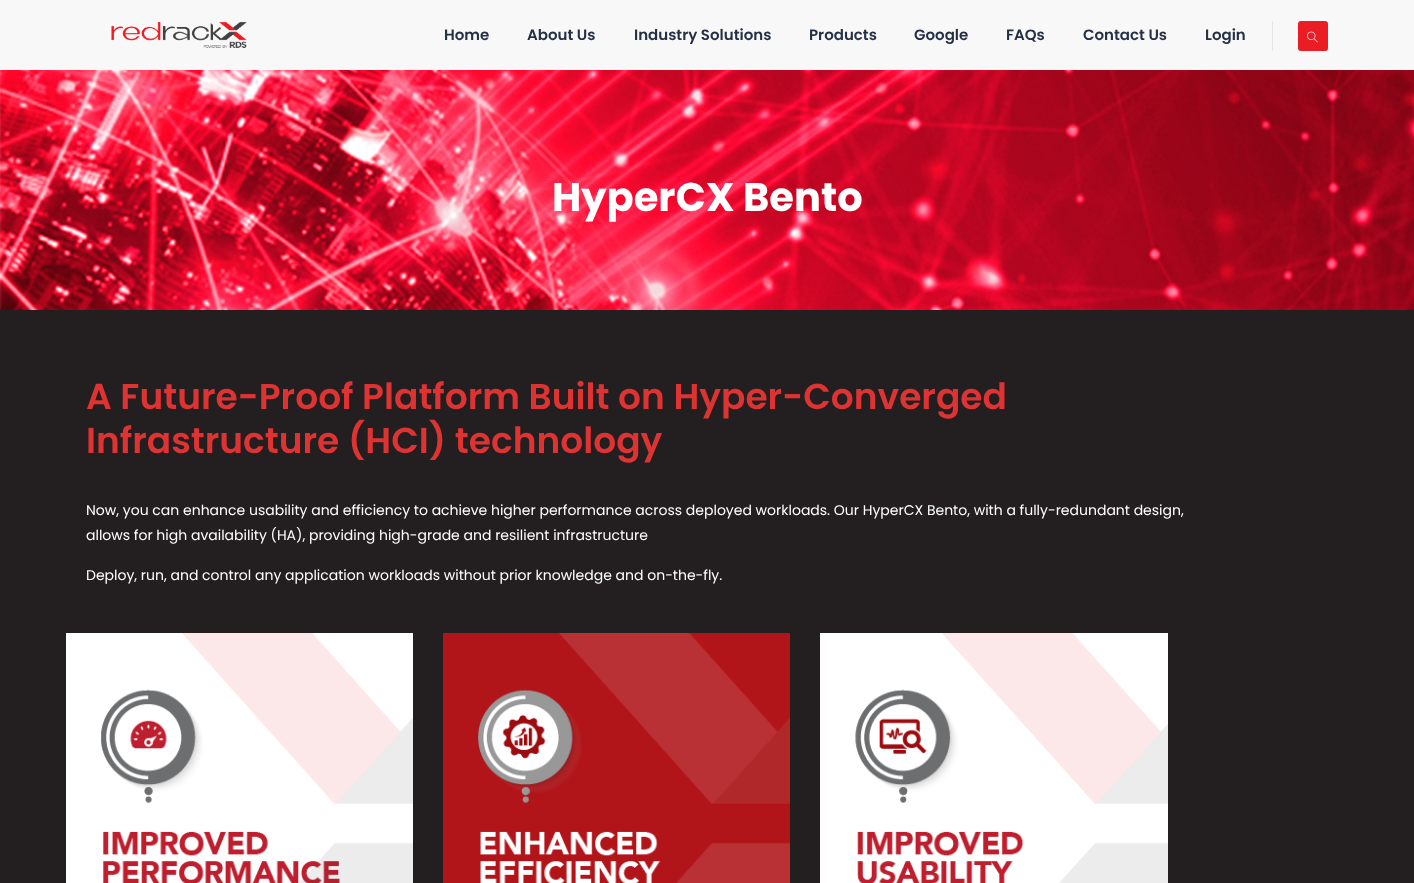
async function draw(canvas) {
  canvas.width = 1414
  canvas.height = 883
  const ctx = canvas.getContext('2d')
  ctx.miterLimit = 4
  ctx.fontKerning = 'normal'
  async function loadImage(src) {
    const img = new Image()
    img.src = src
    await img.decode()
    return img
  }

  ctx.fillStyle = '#231f20'
  ctx.fillRect(0, 0, 1414, 883)
  ctx.fillStyle = '#f8f8f8'
  ctx.fillRect(0, 0, 1414, 70)
  ctx.drawImage(await loadImage('image0.png'), 111, 21, 136, 27)
  ctx.font = '600 15px Poppins'
  ctx.fillStyle = '#263045'
  ctx.fillText('Home', 444, 40)
  ctx.fillText('About Us', 527, 40)
  ctx.fillText('Industry Solutions', 634, 40)
  ctx.fillText('Products', 809, 40)
  ctx.fillText('Google', 914, 40)
  ctx.fillText('FAQs', 1006, 40)
  ctx.fillText('Contact Us', 1083, 40)
  ctx.fillText('Login', 1205, 40)
  ctx.fillStyle = '#e5e6e8'
  ctx.fillRect(1272, 21, 1, 30)
  ctx.fillStyle = '#ea1d24'
  ctx.beginPath()
  ctx.roundRect(1298, 21, 30, 30, 3)
  ctx.fill()
  ctx.drawImage(await loadImage('image1.png'), 1307, 31, 11, 12)
  ctx.drawImage(await loadImage('image2.png'), 0, 70, 1414, 240)
  ctx.font = 'bold 40px Poppins'
  ctx.fillStyle = '#fff'
  ctx.fillText('HyperCX Bento', 552, 211)
  ctx.font = '600 36px Poppins'
  ctx.fillStyle = '#d33'
  ctx.fillText('A Future-Proof Platform Built on Hyper-Converged', 86, 409)
  ctx.fillText('Infrastructure (HCI) technology', 86, 453)
  ctx.font = '14px Poppins'
  ctx.fillStyle = '#fff'
  ctx.fillText('Now, you can enhance usability and efficiency to achieve higher performance across deployed workloads. Our HyperCX Bento, with a fully-redundant design,', 86, 515)
  ctx.fillText('allows for high availability (HA), providing high-grade and resilient infrastructure', 86, 540)
  ctx.fillText('Deploy, run, and control any application workloads without prior knowledge and on-the-fly.', 86, 580)
  ctx.drawImage(await loadImage('image3.png'), 66, 633, 347, 250)
  ctx.drawImage(await loadImage('image4.png'), 443, 633, 347, 250)
  ctx.drawImage(await loadImage('image5.png'), 820, 633, 348, 250)
}

draw(document.querySelector('canvas'))
